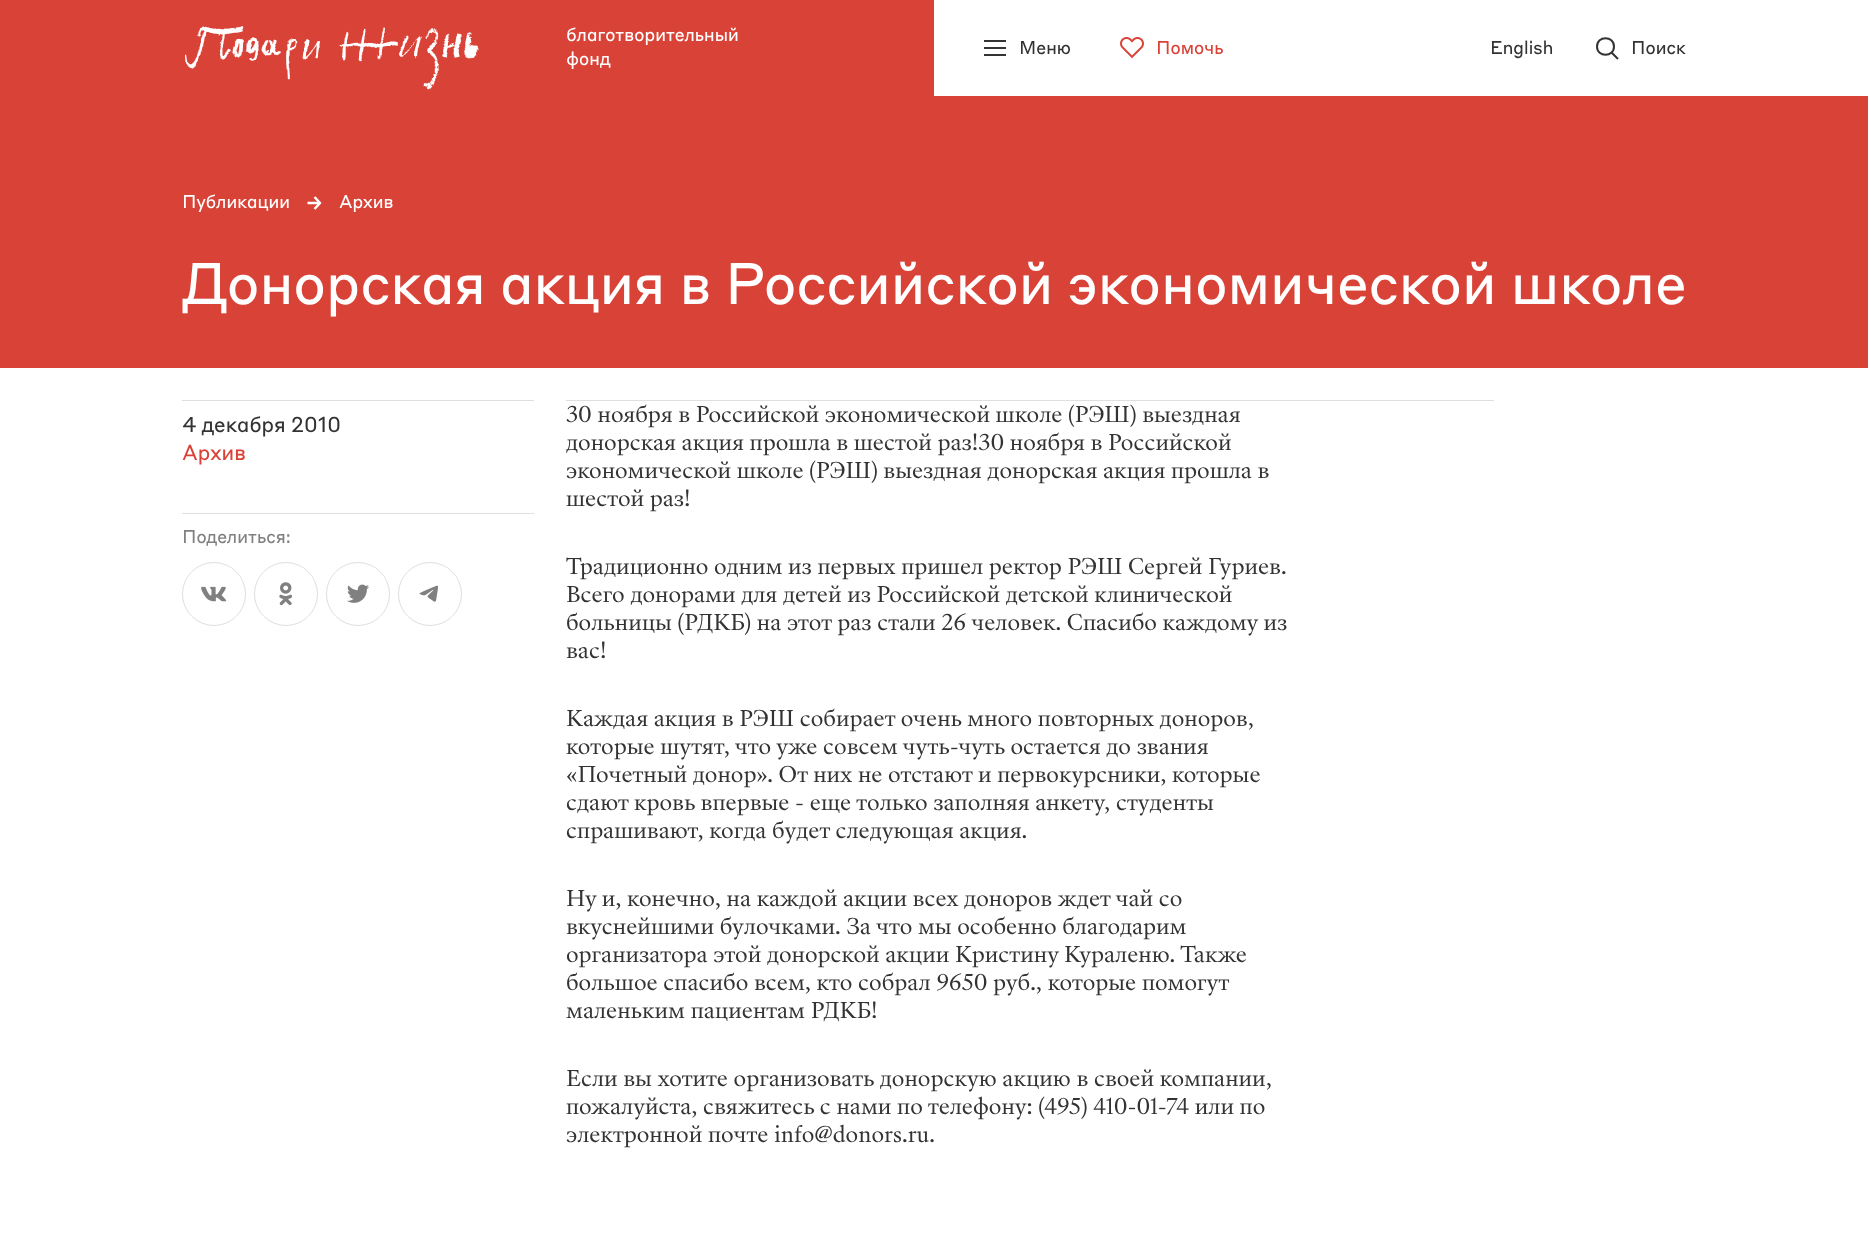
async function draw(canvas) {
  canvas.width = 1868
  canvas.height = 1234
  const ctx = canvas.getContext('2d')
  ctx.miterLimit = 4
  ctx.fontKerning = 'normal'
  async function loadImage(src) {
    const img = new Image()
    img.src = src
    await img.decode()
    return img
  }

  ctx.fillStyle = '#fff'
  ctx.fillRect(0, 0, 1868, 1234)
  ctx.fillStyle = '#d94236'
  ctx.fillRect(0, 0, 934, 96)
  ctx.drawImage(await loadImage('image0.png'), 185, 26, 294, 64)
  ctx.letterSpacing = '-0.4px'
  ctx.font = '18.25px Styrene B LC'
  ctx.fillStyle = '#fff'
  ctx.fillText('благотворительный', 566, 41)
  ctx.fillText('фонд', 566, 65)
  ctx.fillStyle = '#333'
  ctx.fillRect(984, 40, 22, 2)
  ctx.fillRect(984, 47, 22, 2)
  ctx.fillRect(984, 54, 22, 2)
  ctx.fillText('Меню', 1019, 54)
  ctx.drawImage(await loadImage('image1.png'), 1120, 37, 24, 22)
  ctx.fillStyle = '#d94236'
  ctx.fillText('Помочь', 1156, 54)
  ctx.fillStyle = '#333'
  ctx.fillText('English', 1490, 54)
  ctx.beginPath()
  ctx.moveTo(1618, 59)
  ctx.lineTo(1611.5, 52.5)
  ctx.moveTo(1614, 46.5)
  ctx.bezierCurveTo(1614, 57.5, 1597, 57.5, 1597, 46.5)
  ctx.bezierCurveTo(1597, 35.5, 1614, 35.5, 1614, 46.5)
  ctx.closePath()
  ctx.strokeStyle = '#333'
  ctx.lineWidth = 2
  ctx.stroke()
  ctx.fillText('Поиск', 1631, 54)
  ctx.fillStyle = '#d94236'
  ctx.fillRect(0, 96, 1868, 272)
  ctx.fillStyle = '#fff'
  ctx.fillText('Публикации', 182, 208)
  ctx.beginPath()
  ctx.moveTo(307.5, 203)
  ctx.lineTo(320.5, 203)
  ctx.moveTo(320.5, 203.5)
  ctx.lineTo(314.5, 197)
  ctx.moveTo(320.5, 202.5)
  ctx.lineTo(314.5, 209)
  ctx.strokeStyle = '#fff'
  ctx.lineWidth = 2.5
  ctx.stroke()
  ctx.fillText('Архив', 339, 208)
  ctx.letterSpacing = '-1.15px'
  ctx.font = '57.8px Styrene B LC'
  ctx.fillText('Донорская акция в Российской экономической школе', 182, 304)
  ctx.fillStyle = '#dfdfdf'
  ctx.fillRect(182, 400, 352, 1)
  ctx.letterSpacing = '-0.4px'
  ctx.font = '21.25px Styrene B LC'
  ctx.fillStyle = '#333'
  ctx.fillText('4 декабря 2010', 182, 432)
  ctx.fillStyle = '#d94236'
  ctx.fillText('Архив', 182, 460)
  ctx.fillStyle = '#dfdfdf'
  ctx.fillRect(182, 513, 352, 1)
  ctx.font = '18.25px Styrene B LC'
  ctx.fillStyle = '#808080'
  ctx.fillText('Поделиться:', 182, 543)
  ctx.beginPath()
  ctx.arc(214, 594, 31.5, 0, 2 * Math.PI)
  ctx.strokeStyle = '#dfdfdf'
  ctx.lineWidth = 1
  ctx.stroke()
  ctx.drawImage(await loadImage('image2.png'), 201, 586, 26, 16)
  ctx.beginPath()
  ctx.arc(286, 594, 31.5, 0, 2 * Math.PI)
  ctx.stroke()
  ctx.drawImage(await loadImage('image3.png'), 279, 582, 14, 24)
  ctx.beginPath()
  ctx.arc(358, 594, 31.5, 0, 2 * Math.PI)
  ctx.stroke()
  ctx.drawImage(await loadImage('image4.png'), 347, 584, 22, 19)
  ctx.beginPath()
  ctx.arc(430, 594, 31.5, 0, 2 * Math.PI)
  ctx.stroke()
  ctx.drawImage(await loadImage('image5.png'), 419, 585, 20, 17)
  ctx.fillStyle = '#dfdfdf'
  ctx.fillRect(566, 400, 928, 1)
  ctx.letterSpacing = '0px'
  ctx.font = '21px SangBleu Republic'
  ctx.fillStyle = '#333'
  ctx.fillText('30 ноября в Российской экономической школе (РЭШ) выездная', 566, 422)
  ctx.fillText('донорская акция прошла в шестой раз!30 ноября в Российской', 566, 450)
  ctx.fillText('экономической школе (РЭШ) выездная донорская акция прошла в', 566, 478)
  ctx.fillText('шестой раз!', 566, 506)
  ctx.fillText('Традиционно одним из первых пришел ректор РЭШ Сергей Гуриев.', 566, 574)
  ctx.fillText('Всего донорами для детей из Российской детской клинической', 566, 602)
  ctx.fillText('больницы (РДКБ) на этот раз стали 26 человек. Спасибо каждому из', 566, 630)
  ctx.fillText('вас!', 566, 658)
  ctx.fillText('Каждая акция в РЭШ собирает очень много повторных доноров,', 566, 726)
  ctx.fillText('которые шутят, что уже совсем чуть-чуть остается до звания', 566, 754)
  ctx.fillText('«Почетный донор». От них не отстают и первокурсники, которые', 566, 782)
  ctx.fillText('сдают кровь впервые - еще только заполняя анкету, студенты', 566, 810)
  ctx.fillText('спрашивают, когда будет следующая акция.', 566, 838)
  ctx.fillText('Ну и, конечно, на каждой акции всех доноров ждет чай со', 566, 906)
  ctx.fillText('вкуснейшими булочками. За что мы особенно благодарим', 566, 934)
  ctx.fillText('организатора этой донорской акции Кристину Кураленю. Также', 566, 962)
  ctx.fillText('большое спасибо всем, кто собрал 9650 руб., которые помогут', 566, 990)
  ctx.fillText('маленьким пациентам РДКБ!', 566, 1018)
  ctx.fillText('Если вы хотите организовать донорскую акцию в своей компании,', 566, 1086)
  ctx.fillText('пожалуйста, свяжитесь с нами по телефону: (495) 410-01-74 или по', 566, 1114)
  ctx.fillText('электронной почте info@donors.ru.', 566, 1142)
}

draw(document.querySelector('canvas'))
